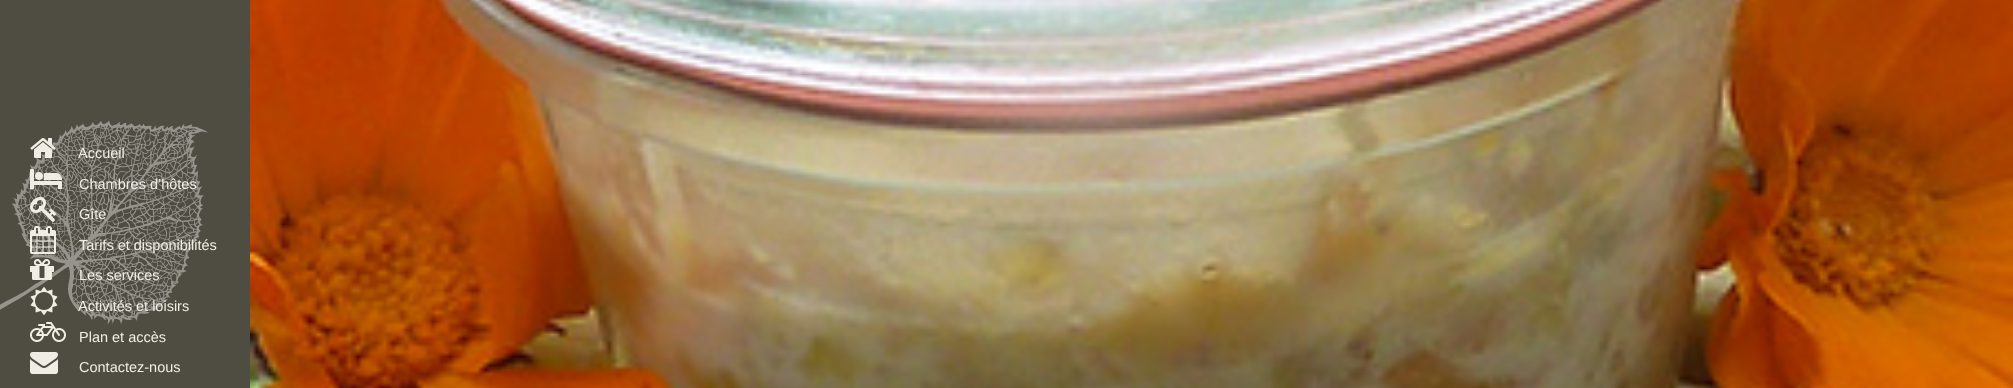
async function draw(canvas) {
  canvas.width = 2013
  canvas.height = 388
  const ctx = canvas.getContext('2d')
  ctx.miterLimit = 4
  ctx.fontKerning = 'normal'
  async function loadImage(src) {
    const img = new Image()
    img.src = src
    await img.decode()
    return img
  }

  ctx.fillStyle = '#fff'
  ctx.fillRect(0, 0, 2013, 388)
  ctx.fillStyle = '#4f4c41'
  ctx.fillRect(0, 0, 250, 388)
  ctx.drawImage(await loadImage('image0.png'), 0, 121, 208, 203)
  ctx.drawImage(await loadImage('image1.png'), 30, 138, 26, 20)
  ctx.font = '14.5px Liberation Sans'
  ctx.fillStyle = '#efede4'
  ctx.fillText('Accueil', 78, 158)
  ctx.drawImage(await loadImage('image2.png'), 30, 169, 32, 20)
  ctx.fillText('Chambres d’hôtes', 79, 189)
  ctx.drawImage(await loadImage('image3.png'), 30, 197, 27, 25)
  ctx.fillText('Gîte', 79, 219)
  ctx.drawImage(await loadImage('image4.png'), 30, 226, 26, 28)
  ctx.fillText('Tarifs et disponibilités', 79, 250)
  ctx.drawImage(await loadImage('image5.png'), 30, 259, 24, 21)
  ctx.fillText('Les services', 79, 280)
  ctx.drawImage(await loadImage('image6.png'), 30, 287, 28, 28)
  ctx.fillText('Activités et loisirs', 78, 311)
  ctx.drawImage(await loadImage('image7.png'), 30, 322, 36, 20)
  ctx.fillText('Plan et accès', 79, 342)
  ctx.drawImage(await loadImage('image8.png'), 30, 352, 28, 22)
  ctx.fillText('Contactez-nous', 79, 372)
  ctx.drawImage(await loadImage('image9.png'), 250, 0, 1763, 388)
}

draw(document.querySelector('canvas'))
